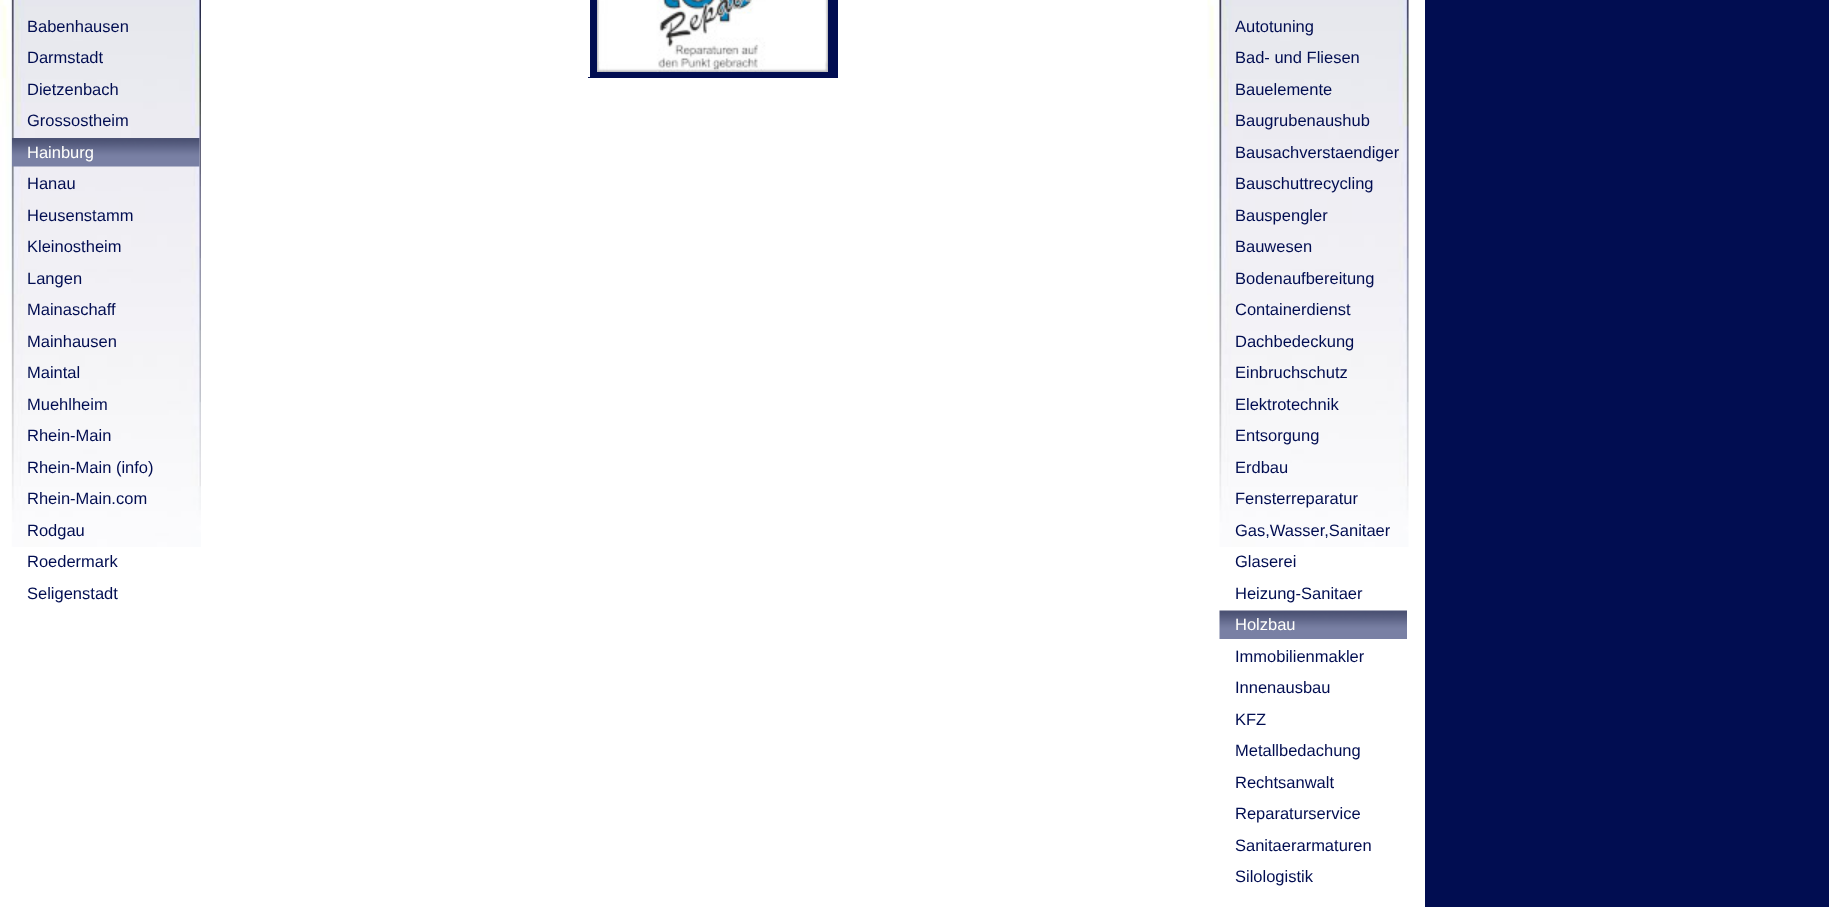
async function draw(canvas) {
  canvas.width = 1829
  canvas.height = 907
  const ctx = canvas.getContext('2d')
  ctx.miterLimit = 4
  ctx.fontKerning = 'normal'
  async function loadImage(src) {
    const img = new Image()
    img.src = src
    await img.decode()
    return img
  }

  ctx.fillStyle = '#010d51'
  ctx.fillRect(0, 0, 1829, 907)
  ctx.fillStyle = '#fff'
  ctx.fillRect(0, 0, 1425, 907)
  ctx.drawImage(await loadImage('image0.png'), 0, 0, 201, 547)
  ctx.font = '16.5px Liberation Sans'
  ctx.fillStyle = '#010d51'
  ctx.fillText('Babenhausen', 27, 32)
  ctx.fillText('Darmstadt', 27, 63)
  ctx.fillText('Dietzenbach', 27, 95)
  ctx.fillText('Grossostheim', 27, 126)
  ctx.drawImage(await loadImage('image1.png'), 12, 138, 188, 29)
  ctx.fillStyle = '#fffffc'
  ctx.fillText('Hainburg', 27, 158)
  ctx.fillStyle = '#010d51'
  ctx.fillText('Hanau', 27, 189)
  ctx.fillText('Heusenstamm', 27, 221)
  ctx.fillText('Kleinostheim', 27, 252)
  ctx.fillText('Langen', 27, 284)
  ctx.fillText('Mainaschaff', 27, 315)
  ctx.fillText('Mainhausen', 27, 347)
  ctx.fillText('Maintal', 27, 378)
  ctx.fillText('Muehlheim', 27, 410)
  ctx.fillText('Rhein-Main', 27, 441)
  ctx.fillText('Rhein-Main (info)', 27, 473)
  ctx.fillText('Rhein-Main.com', 27, 504)
  ctx.fillText('Rodgau', 27, 536)
  ctx.fillText('Roedermark', 27, 567)
  ctx.fillText('Seligenstadt', 27, 599)
  ctx.fillRect(590, 0, 246, 77)
  ctx.fillRect(836, 0, 2, 78)
  ctx.fillRect(588, 77, 249, 1)
  ctx.drawImage(await loadImage('image2.png'), 597, 0, 231, 72)
  ctx.drawImage(await loadImage('image3.png'), 1207, 0, 202, 547)
  ctx.fillText('Autotuning', 1235, 32)
  ctx.fillText('Bad- und Fliesen', 1235, 63)
  ctx.fillText('Bauelemente', 1235, 95)
  ctx.fillText('Baugrubenaushub', 1235, 126)
  ctx.fillText('Bausachverstaendiger', 1235, 158)
  ctx.fillText('Bauschuttrecycling', 1235, 189)
  ctx.fillText('Bauspengler', 1235, 221)
  ctx.fillText('Bauwesen', 1235, 252)
  ctx.fillText('Bodenaufbereitung', 1235, 284)
  ctx.fillText('Containerdienst', 1235, 315)
  ctx.fillText('Dachbedeckung', 1235, 347)
  ctx.fillText('Einbruchschutz', 1235, 378)
  ctx.fillText('Elektrotechnik', 1235, 410)
  ctx.fillText('Entsorgung', 1235, 441)
  ctx.fillText('Erdbau', 1235, 473)
  ctx.fillText('Fensterreparatur', 1235, 504)
  ctx.fillText('Gas,Wasser,Sanitaer', 1235, 536)
  ctx.fillText('Glaserei', 1235, 567)
  ctx.fillText('Heizung-Sanitaer', 1235, 599)
  ctx.drawImage(await loadImage('image4.png'), 1219, 610, 188, 29)
  ctx.fillStyle = '#fffffc'
  ctx.fillText('Holzbau', 1235, 630)
  ctx.fillStyle = '#010d51'
  ctx.fillText('Immobilienmakler', 1235, 662)
  ctx.fillText('Innenausbau', 1235, 693)
  ctx.fillText('KFZ', 1235, 725)
  ctx.fillText('Metallbedachung', 1235, 756)
  ctx.fillText('Rechtsanwalt', 1235, 788)
  ctx.fillText('Reparaturservice', 1235, 819)
  ctx.fillText('Sanitaerarmaturen', 1235, 851)
  ctx.fillText('Silologistik', 1235, 882)
}

draw(document.querySelector('canvas'))
